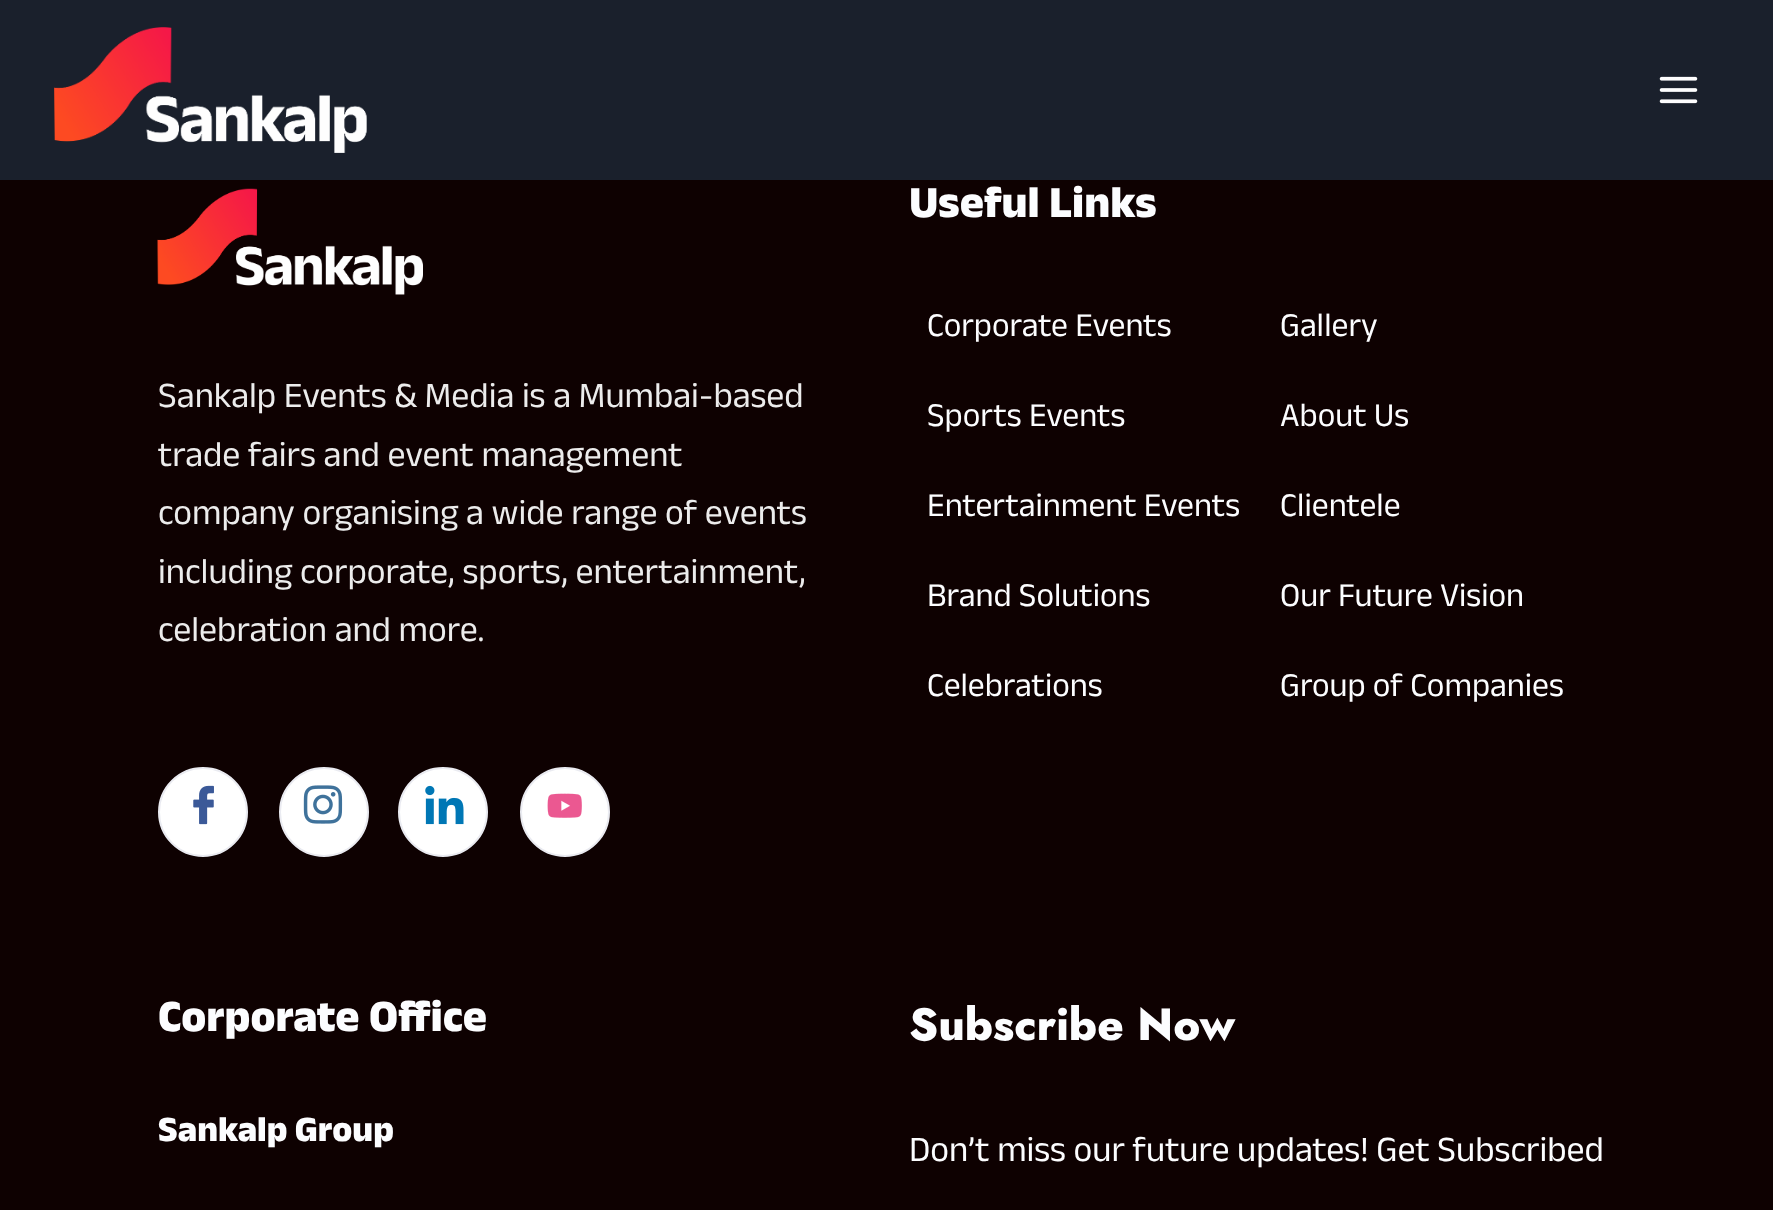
async function draw(canvas) {
  canvas.width = 1773
  canvas.height = 1210
  const ctx = canvas.getContext('2d')
  ctx.miterLimit = 4
  ctx.fontKerning = 'normal'
  async function loadImage(src) {
    const img = new Image()
    img.src = src
    await img.decode()
    return img
  }

  ctx.fillStyle = '#0e0101'
  ctx.fillRect(0, 0, 1773, 1210)
  ctx.fillStyle = '#1a202c'
  ctx.fillRect(0, 0, 1773, 180)
  ctx.drawImage(await loadImage('image0.png'), 54, 27, 313, 126)
  ctx.drawImage(await loadImage('image1.png'), 1659, 76, 39, 28)
  ctx.drawImage(await loadImage('image2.png'), 157, 188, 266, 107)
  ctx.font = '36px Anek Devanagari'
  ctx.fillStyle = '#ececec'
  ctx.fillText('Sankalp Events & Media is a Mumbai-based', 158, 407)
  ctx.fillText('trade fairs and event management', 158, 466)
  ctx.fillText('company organising a wide range of events', 158, 524)
  ctx.fillText('including corporate, sports, entertainment,', 158, 583)
  ctx.fillText('celebration and more.', 158, 641)
  ctx.fillStyle = '#fff'
  ctx.beginPath()
  ctx.arc(203, 812, 44, 0, 2 * Math.PI)
  ctx.fill()
  ctx.strokeStyle = '#eaebf1'
  ctx.lineWidth = 2
  ctx.stroke()
  ctx.drawImage(await loadImage('image3.png'), 193, 785, 21, 40)
  ctx.beginPath()
  ctx.arc(324, 812, 44, 0, 2 * Math.PI)
  ctx.fill()
  ctx.stroke()
  ctx.drawImage(await loadImage('image4.png'), 303, 785, 40, 39)
  ctx.beginPath()
  ctx.arc(443, 812, 44, 0, 2 * Math.PI)
  ctx.fill()
  ctx.stroke()
  ctx.drawImage(await loadImage('image5.png'), 425, 785, 39, 40)
  ctx.beginPath()
  ctx.arc(565, 812, 44, 0, 2 * Math.PI)
  ctx.fill()
  ctx.stroke()
  ctx.drawImage(await loadImage('image6.png'), 547, 793, 35, 25)
  ctx.font = '800 45px Anek Devanagari'
  ctx.fillStyle = '#fcfdff'
  ctx.fillText('Useful Links', 909, 217)
  ctx.font = '33.75px Anek Devanagari'
  ctx.fillText('Corporate Events', 927, 336)
  ctx.fillText('Sports Events', 927, 426)
  ctx.fillText('Entertainment Events', 927, 516)
  ctx.fillText('Brand Solutions', 927, 606)
  ctx.fillText('Celebrations', 927, 696)
  ctx.fillText('Gallery', 1280, 336)
  ctx.fillText('About Us', 1280, 426)
  ctx.fillText('Clientele', 1280, 516)
  ctx.fillText('Our Future Vision', 1280, 606)
  ctx.fillText('Group of Companies', 1280, 696)
  ctx.font = '800 45px Anek Devanagari'
  ctx.fillText('Corporate Office', 158, 1031)
  ctx.font = '800 36px Anek Devanagari'
  ctx.fillText('Sankalp Group', 158, 1141)
  ctx.font = '800 45px Jost'
  ctx.fillText('Subscribe Now', 909, 1040)
  ctx.font = '36px Anek Devanagari'
  ctx.fillText('Don’t miss our future updates! Get Subscribed', 909, 1161)
}

draw(document.querySelector('canvas'))
